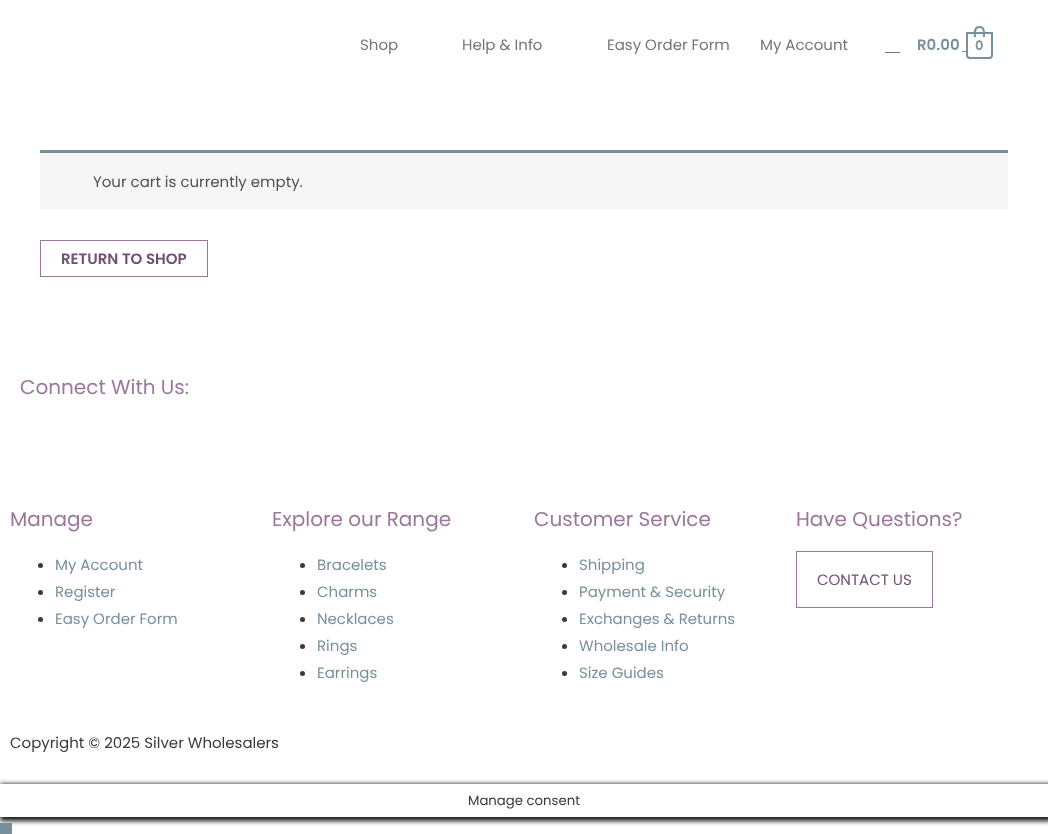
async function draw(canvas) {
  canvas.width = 1048
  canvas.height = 834
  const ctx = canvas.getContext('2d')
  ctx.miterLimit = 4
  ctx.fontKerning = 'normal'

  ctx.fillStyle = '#fff'
  ctx.fillRect(0, 0, 1048, 834)
  ctx.font = '15px Poppins'
  ctx.fillStyle = '#757575'
  ctx.fillText('Shop', 360, 50)
  ctx.fillText('Help & Info', 462, 50)
  ctx.fillText('Easy Order Form', 607, 50)
  ctx.fillText('My Account', 760, 50)
  ctx.font = '600 15px Poppins'
  ctx.fillStyle = '#78909c'
  ctx.fillText('R0.00', 917, 50)
  ctx.beginPath()
  ctx.roundRect(967, 33, 25, 25, [0, 0, 3, 3])
  ctx.strokeStyle = '#78909c'
  ctx.lineWidth = 2
  ctx.stroke()
  ctx.beginPath()
  ctx.moveTo(979.5, 26)
  ctx.bezierCurveTo(985.5, 26, 985, 32.5, 985, 37)
  ctx.lineTo(974, 37)
  ctx.bezierCurveTo(974, 32.5, 973, 26, 979.5, 26)
  ctx.closePath()
  ctx.moveTo(979.5, 28)
  ctx.bezierCurveTo(984, 28, 983, 34, 983, 37)
  ctx.lineTo(976, 37)
  ctx.bezierCurveTo(976, 34, 975, 28, 979.5, 28)
  ctx.closePath()
  ctx.fill('evenodd')
  ctx.font = '600 13px Poppins'
  ctx.fillText('0', 975, 50)
  ctx.fillRect(962, 51, 4, 1)
  ctx.fillStyle = '#757575'
  ctx.fillRect(885, 52, 15, 1)
  ctx.fillStyle = '#f7f6f7'
  ctx.fillRect(40, 153, 968, 57)
  ctx.fillStyle = '#78909c'
  ctx.fillRect(40, 150, 968, 3)
  ctx.font = '15px Poppins'
  ctx.fillStyle = '#515151'
  ctx.fillText('Your cart is currently empty.', 93, 187)
  ctx.strokeStyle = '#9a789b'
  ctx.lineWidth = 1
  ctx.strokeRect(40.5, 240.5, 167, 36)
  ctx.font = '600 15px Poppins'
  ctx.fillStyle = '#6f5170'
  ctx.fillText('RETURN TO SHOP', 61, 264)
  ctx.font = '20px Poppins'
  ctx.fillStyle = '#9a789b'
  ctx.fillText('Connect With Us:', 20, 394)
  ctx.fillText('Manage', 10, 526)
  ctx.fillStyle = '#3a3a3a'
  ctx.beginPath()
  ctx.arc(40.5, 565.5, 2.5, 0, 2 * Math.PI)
  ctx.fill()
  ctx.font = '15px Poppins'
  ctx.fillStyle = '#78909c'
  ctx.fillText('My Account', 55, 570)
  ctx.fillStyle = '#3a3a3a'
  ctx.beginPath()
  ctx.arc(40.5, 592.5, 2.5, 0, 2 * Math.PI)
  ctx.fill()
  ctx.fillStyle = '#78909c'
  ctx.fillText('Register', 55, 597)
  ctx.fillStyle = '#3a3a3a'
  ctx.beginPath()
  ctx.arc(40.5, 619.5, 2.5, 0, 2 * Math.PI)
  ctx.fill()
  ctx.fillStyle = '#78909c'
  ctx.fillText('Easy Order Form', 55, 624)
  ctx.font = '20px Poppins'
  ctx.fillStyle = '#9a789b'
  ctx.fillText('Explore our Range', 272, 526)
  ctx.fillStyle = '#3a3a3a'
  ctx.beginPath()
  ctx.arc(302.5, 565.5, 2.5, 0, 2 * Math.PI)
  ctx.fill()
  ctx.font = '15px Poppins'
  ctx.fillStyle = '#78909c'
  ctx.fillText('Bracelets', 317, 570)
  ctx.fillStyle = '#3a3a3a'
  ctx.beginPath()
  ctx.arc(302.5, 592.5, 2.5, 0, 2 * Math.PI)
  ctx.fill()
  ctx.fillStyle = '#78909c'
  ctx.fillText('Charms', 317, 597)
  ctx.fillStyle = '#3a3a3a'
  ctx.beginPath()
  ctx.arc(302.5, 619.5, 2.5, 0, 2 * Math.PI)
  ctx.fill()
  ctx.fillStyle = '#78909c'
  ctx.fillText('Necklaces', 317, 624)
  ctx.fillStyle = '#3a3a3a'
  ctx.beginPath()
  ctx.arc(302.5, 646.5, 2.5, 0, 2 * Math.PI)
  ctx.fill()
  ctx.fillStyle = '#78909c'
  ctx.fillText('Rings', 317, 651)
  ctx.fillStyle = '#3a3a3a'
  ctx.beginPath()
  ctx.arc(302.5, 673.5, 2.5, 0, 2 * Math.PI)
  ctx.fill()
  ctx.fillStyle = '#78909c'
  ctx.fillText('Earrings', 317, 678)
  ctx.font = '20px Poppins'
  ctx.fillStyle = '#9a789b'
  ctx.fillText('Customer Service', 534, 526)
  ctx.fillStyle = '#3a3a3a'
  ctx.beginPath()
  ctx.arc(564.5, 565.5, 2.5, 0, 2 * Math.PI)
  ctx.fill()
  ctx.font = '15px Poppins'
  ctx.fillStyle = '#78909c'
  ctx.fillText('Shipping', 579, 570)
  ctx.fillStyle = '#3a3a3a'
  ctx.beginPath()
  ctx.arc(564.5, 592.5, 2.5, 0, 2 * Math.PI)
  ctx.fill()
  ctx.fillStyle = '#78909c'
  ctx.fillText('Payment & Security', 579, 597)
  ctx.fillStyle = '#3a3a3a'
  ctx.beginPath()
  ctx.arc(564.5, 619.5, 2.5, 0, 2 * Math.PI)
  ctx.fill()
  ctx.fillStyle = '#78909c'
  ctx.fillText('Exchanges & Returns', 579, 624)
  ctx.fillStyle = '#3a3a3a'
  ctx.beginPath()
  ctx.arc(564.5, 646.5, 2.5, 0, 2 * Math.PI)
  ctx.fill()
  ctx.fillStyle = '#78909c'
  ctx.fillText('Wholesale Info', 579, 651)
  ctx.fillStyle = '#3a3a3a'
  ctx.beginPath()
  ctx.arc(564.5, 673.5, 2.5, 0, 2 * Math.PI)
  ctx.fill()
  ctx.fillStyle = '#78909c'
  ctx.fillText('Size Guides', 579, 678)
  ctx.font = '20px Poppins'
  ctx.fillStyle = '#9a789b'
  ctx.fillText('Have Questions?', 796, 526)
  ctx.strokeRect(796.5, 551.5, 136, 56)
  ctx.font = '15px Poppins'
  ctx.fillStyle = '#6f5170'
  ctx.fillText('CONTACT US', 817, 585)
  ctx.fillStyle = '#3a3a3a'
  ctx.fillText('Copyright © 2025 Silver Wholesalers', 10, 748)
  ctx.save()
  ctx.beginPath()
  ctx.moveTo(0, 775)
  ctx.lineTo(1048, 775)
  ctx.lineTo(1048, 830)
  ctx.lineTo(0, 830)
  ctx.closePath()
  ctx.moveTo(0, 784)
  ctx.lineTo(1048, 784)
  ctx.lineTo(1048, 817)
  ctx.lineTo(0, 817)
  ctx.closePath()
  ctx.clip('evenodd')
  ctx.fillStyle = '#161616'
  ctx.filter = 'blur(2.5px)'
  ctx.beginPath()
  ctx.rect(0, 784, 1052, 37)
  ctx.fill()
  ctx.filter = 'none'
  ctx.restore()
  ctx.font = '13.25px Poppins'
  ctx.fillText('Manage consent', 468, 805)
  ctx.fillStyle = '#78909c'
  ctx.fillRect(0, 823, 12, 11)
}

draw(document.querySelector('canvas'))
